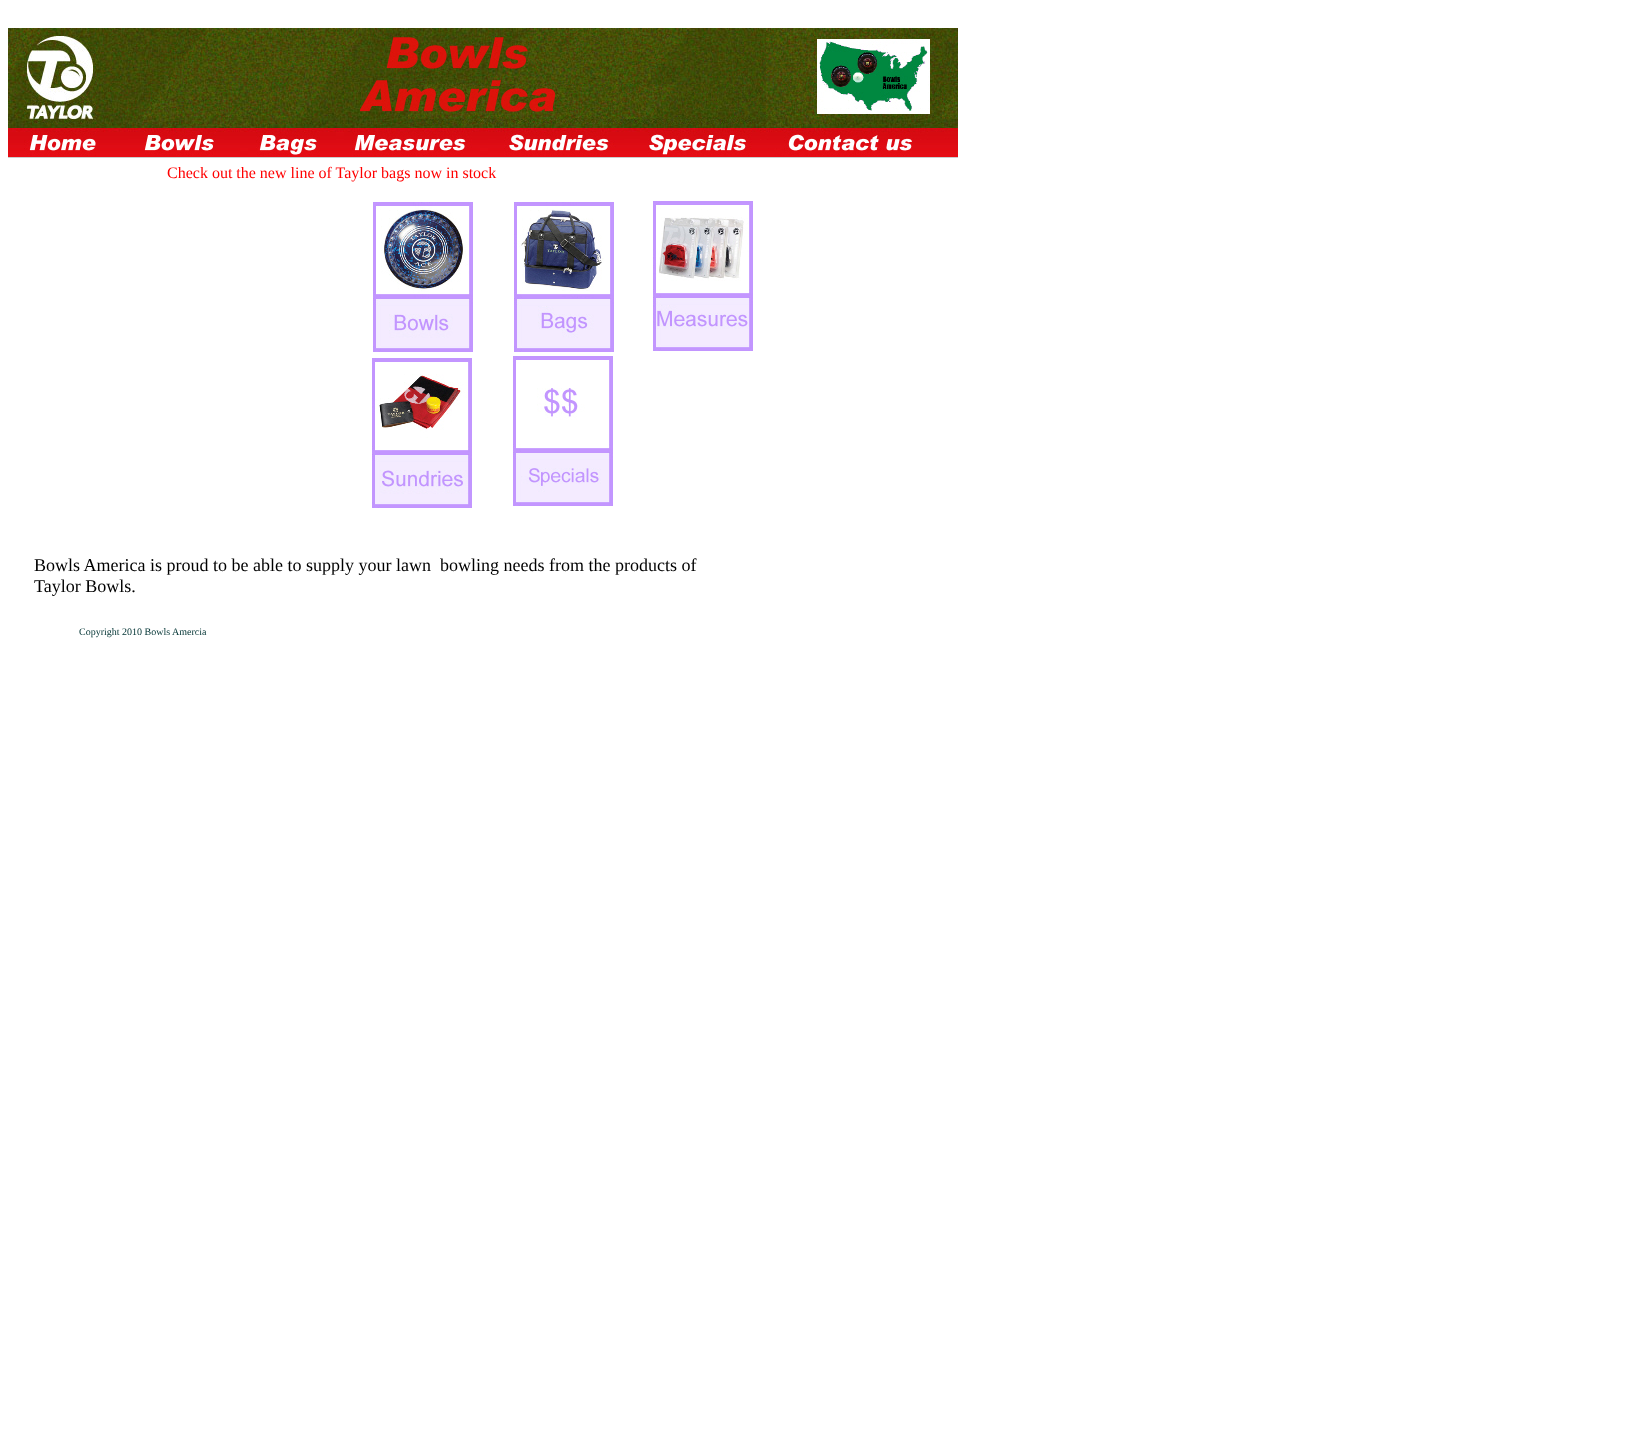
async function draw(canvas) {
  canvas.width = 1638
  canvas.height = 1433
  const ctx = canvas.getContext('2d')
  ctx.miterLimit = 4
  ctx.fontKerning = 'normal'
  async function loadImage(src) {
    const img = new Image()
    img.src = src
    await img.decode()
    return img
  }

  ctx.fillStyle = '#fff'
  ctx.fillRect(0, 0, 1638, 1433)
  ctx.drawImage(await loadImage('image0.png'), 8, 28, 950, 130)
  ctx.font = '16px Liberation Serif'
  ctx.fillStyle = '#f00'
  ctx.fillText('Check out the new line of Taylor bags now in stock', 167, 178)
  ctx.drawImage(await loadImage('image1.png'), 373, 202, 100, 150)
  ctx.drawImage(await loadImage('image2.png'), 514, 202, 100, 150)
  ctx.drawImage(await loadImage('image3.png'), 653, 201, 100, 150)
  ctx.drawImage(await loadImage('image4.png'), 372, 358, 100, 150)
  ctx.drawImage(await loadImage('image5.png'), 513, 356, 100, 150)
  ctx.font = '18px Liberation Serif'
  ctx.fillStyle = '#000'
  ctx.fillText('Bowls America is proud to be able to supply your lawn  bowling needs from the products of', 34, 571)
  ctx.fillText('Taylor Bowls.', 34, 592)
  ctx.font = '10px Liberation Serif'
  ctx.fillStyle = '#033'
  ctx.fillText('Copyright 2010 Bowls Amercia', 79, 635)
}

draw(document.querySelector('canvas'))
